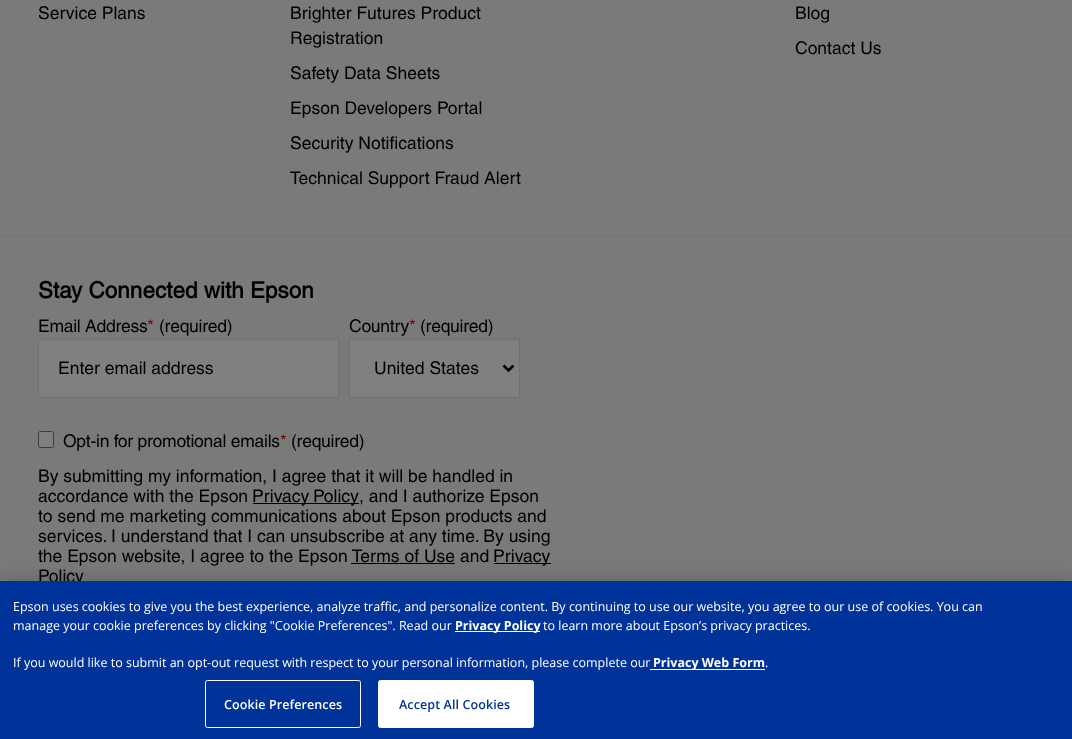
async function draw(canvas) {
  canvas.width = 1072
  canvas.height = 739
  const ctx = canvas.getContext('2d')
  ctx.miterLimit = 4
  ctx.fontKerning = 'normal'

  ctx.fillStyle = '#797b7b'
  ctx.fillRect(0, 0, 1072, 739)
  ctx.font = '17.5px Helvetica'
  ctx.fillStyle = '#000'
  ctx.fillText('Service Plans', 38, 19)
  ctx.fillText('Brighter Futures Product', 290, 19)
  ctx.fillText('Registration', 290, 44)
  ctx.fillText('Safety Data Sheets', 290, 79)
  ctx.fillText('Epson Developers Portal', 290, 114)
  ctx.fillText('Security Notifications', 290, 149)
  ctx.fillText('Technical Support Fraud Alert', 290, 184)
  ctx.fillText('Blog', 795, 19)
  ctx.fillText('Contact Us', 795, 54)
  ctx.fillStyle = '#737373'
  ctx.fillRect(0, 235, 1072, 1)
  ctx.font = 'bold 22.5px Helvetica'
  ctx.fillStyle = '#000'
  ctx.fillText('Stay Connected with Epson', 38, 298)
  ctx.letterSpacing = '-0.25px'
  ctx.font = '17.5px Helvetica'
  ctx.fillText('Email Address', 38, 332)
  ctx.fillStyle = '#800000'
  ctx.fillText('*', 147, 332)
  ctx.fillStyle = '#000'
  ctx.fillText('(required)', 159, 332)
  ctx.fillStyle = '#808080'
  ctx.fillRect(39, 340, 299, 57)
  ctx.fillStyle = '#767676'
  ctx.fillRect(39, 339, 299, 1)
  ctx.strokeStyle = '#727272'
  ctx.strokeRect(38.5, 338.5, 300, 59)
  ctx.letterSpacing = '0px'
  ctx.fillStyle = '#000'
  ctx.fillText('Enter email address', 58, 374)
  ctx.letterSpacing = '-0.25px'
  ctx.fillText('Country', 349, 332)
  ctx.fillStyle = '#800000'
  ctx.fillText('*', 409, 332)
  ctx.fillStyle = '#000'
  ctx.fillText('(required)', 420, 332)
  ctx.fillStyle = '#808080'
  ctx.fillRect(350, 340, 169, 57)
  ctx.fillStyle = '#767676'
  ctx.fillRect(350, 339, 169, 1)
  ctx.strokeRect(349.5, 338.5, 170, 59)
  ctx.beginPath()
  ctx.moveTo(503.5, 365.5)
  ctx.lineTo(508.5, 370.5)
  ctx.lineTo(513.5, 365.5)
  ctx.strokeStyle = '#000'
  ctx.lineWidth = 2.5
  ctx.stroke()
  ctx.letterSpacing = '0px'
  ctx.fillStyle = '#000'
  ctx.fillText('United States', 374, 374)
  ctx.fillStyle = '#808080'
  ctx.beginPath()
  ctx.roundRect(38.5, 431.5, 15, 16, 2)
  ctx.fill()
  ctx.strokeStyle = '#3b3b3b'
  ctx.lineWidth = 1
  ctx.stroke()
  ctx.letterSpacing = '-0.25px'
  ctx.fillStyle = '#000'
  ctx.fillText('Opt-in for promotional emails', 63, 447)
  ctx.fillStyle = '#800000'
  ctx.fillText('*', 280, 447)
  ctx.fillStyle = '#000'
  ctx.fillText('(required)', 291, 447)
  ctx.letterSpacing = '0px'
  ctx.fillText('By submitting my information, I agree that it will be handled in', 38, 482)
  ctx.fillText('accordance with the Epson', 38, 502)
  ctx.fillRect(253, 503, 106, 1)
  ctx.wordSpacing = '-1px'
  ctx.fillText('Privacy Policy', 252, 502)
  ctx.wordSpacing = '0px'
  ctx.fillText(', and I authorize Epson', 359, 502)
  ctx.fillText('to send me marketing communications about Epson products and', 38, 522)
  ctx.fillText('services. I understand that I can unsubscribe at any time. By using', 38, 542)
  ctx.fillText('the Epson website, I agree to the Epson Terms of Use and', 38, 562)
  ctx.fillRect(494, 563, 57, 1)
  ctx.fillText('Privacy', 493, 562)
  ctx.fillRect(351, 563, 104, 1)
  ctx.fillText('Policy', 38, 582)
  ctx.fillStyle = '#00000033'
  ctx.filter = 'blur(11px)'
  ctx.beginPath()
  ctx.rect(0, 581, 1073, 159)
  ctx.fill()
  ctx.filter = 'none'
  ctx.fillStyle = '#039'
  ctx.fillRect(0, 581, 1072, 158)
  ctx.font = '12.5px Open Sans'
  ctx.fillStyle = '#fff'
  ctx.fillText('Epson uses cookies to give you the best experience, analyze traffic, and personalize content. By continuing to use our website, you agree to our use of cookies. You can', 13, 611)
  ctx.fillText('manage your cookie preferences by clicking "Cookie Preferences". Read our', 13, 630)
  ctx.fillRect(455, 631, 85, 1)
  ctx.font = 'bold 12.5px Open Sans'
  ctx.fillText('Privacy Policy', 455, 630)
  ctx.font = '12.5px Open Sans'
  ctx.fillText('to learn more about Epson’s privacy practices.', 543, 630)
  ctx.fillText('If you would like to submit an opt-out request with respect to your personal information, please complete our', 13, 667)
  ctx.fillRect(650, 669, 115, 1)
  ctx.font = 'bold 12.5px Open Sans'
  ctx.fillText('Privacy Web Form', 653, 667)
  ctx.font = '12.5px Open Sans'
  ctx.fillText('.', 765, 667)
  ctx.beginPath()
  ctx.roundRect(205.5, 680.5, 155, 47, 2)
  ctx.strokeStyle = '#fff'
  ctx.stroke()
  ctx.letterSpacing = '0.1px'
  ctx.font = '600 12.5px Open Sans'
  ctx.fillText('Cookie Preferences', 224, 709)
  ctx.beginPath()
  ctx.roundRect(378.5, 680.5, 155, 47, 2)
  ctx.fill()
  ctx.stroke()
  ctx.fillStyle = '#039'
  ctx.fillText('Accept All Cookies', 399, 709)
}

draw(document.querySelector('canvas'))
